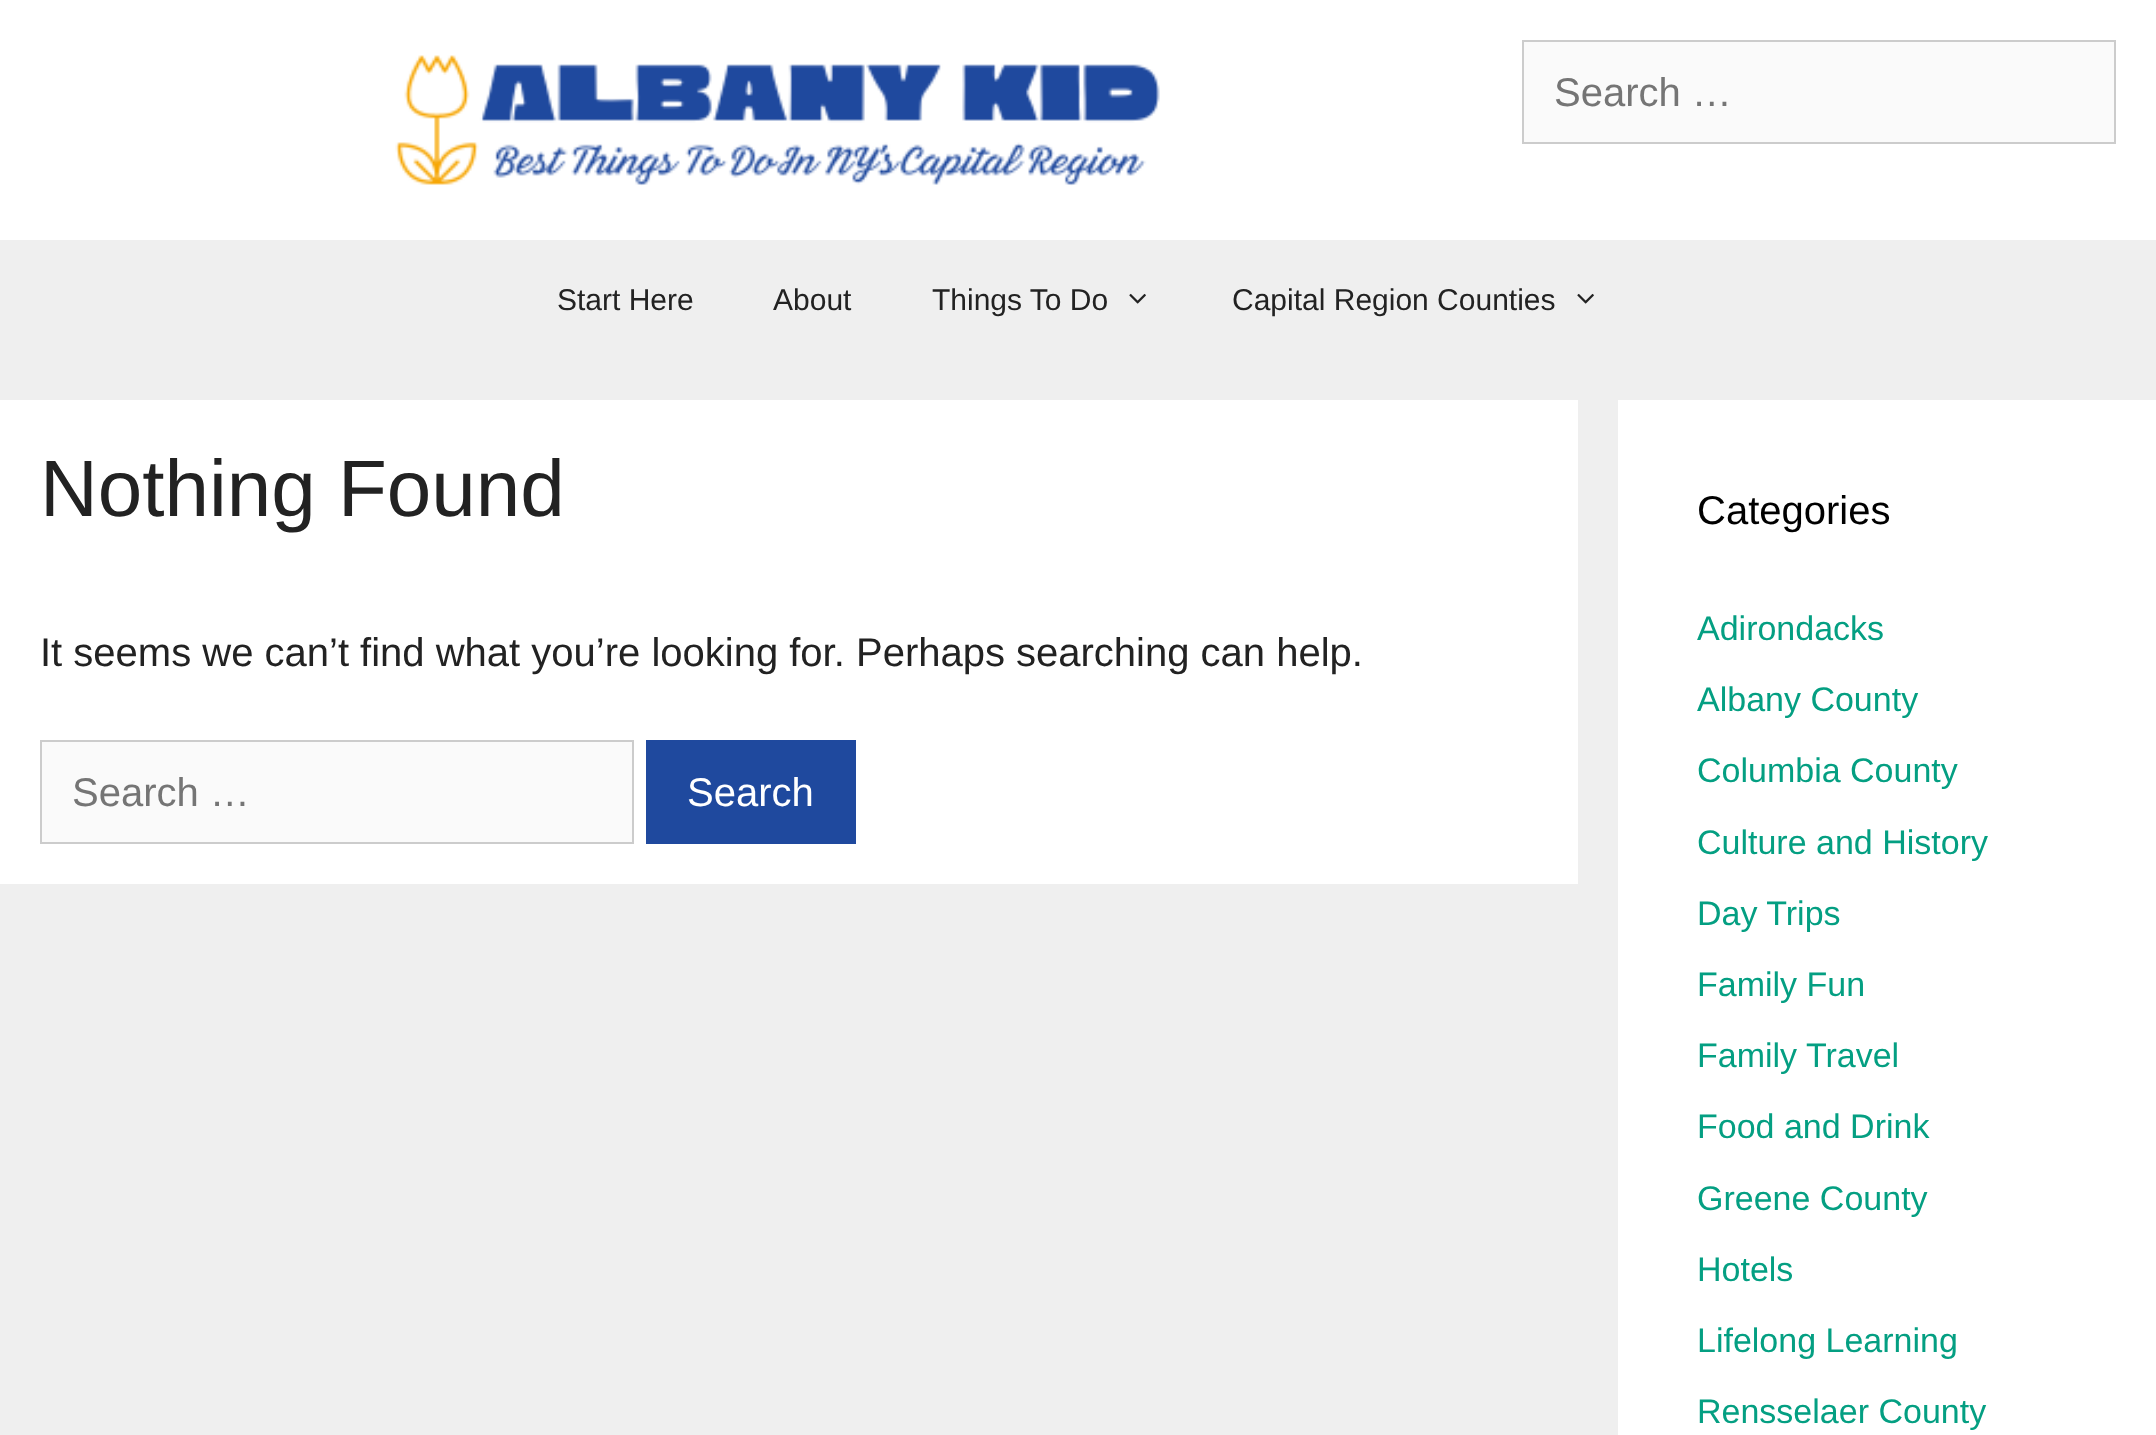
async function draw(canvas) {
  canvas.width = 2156
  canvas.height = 1435
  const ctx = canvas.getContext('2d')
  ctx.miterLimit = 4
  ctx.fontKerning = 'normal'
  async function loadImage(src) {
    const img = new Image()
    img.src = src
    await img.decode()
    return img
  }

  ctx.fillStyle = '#efefef'
  ctx.fillRect(0, 0, 2156, 1435)
  ctx.fillStyle = '#fff'
  ctx.fillRect(0, 0, 2156, 240)
  ctx.drawImage(await loadImage('image0.png'), 395, 55, 765, 131)
  ctx.fillStyle = '#fafafa'
  ctx.beginPath()
  ctx.rect(1523, 41, 592, 102)
  ctx.fill()
  ctx.strokeStyle = '#ccc'
  ctx.lineWidth = 2
  ctx.stroke()
  ctx.font = '40px Liberation Sans'
  ctx.fillStyle = '#757575'
  ctx.fillText('Search …', 1554, 106)
  ctx.font = '30px Liberation Sans'
  ctx.fillStyle = '#222'
  ctx.fillText('Start Here', 557, 310)
  ctx.fillText('About', 773, 310)
  ctx.fillText('Things To Do', 932, 310)
  ctx.drawImage(await loadImage('image1.png'), 1129, 293, 17, 11)
  ctx.fillText('Capital Region Counties', 1232, 310)
  ctx.drawImage(await loadImage('image1.png'), 1577, 293, 17, 11)
  ctx.fillStyle = '#fff'
  ctx.fillRect(0, 400, 1578, 484)
  ctx.font = '80px Liberation Sans'
  ctx.fillStyle = '#222'
  ctx.fillText('Nothing Found', 40, 516)
  ctx.font = '40px Liberation Sans'
  ctx.fillText('It seems we can’t find what you’re looking for. Perhaps searching can help.', 40, 666)
  ctx.fillStyle = '#fafafa'
  ctx.beginPath()
  ctx.rect(41, 741, 592, 102)
  ctx.fill()
  ctx.stroke()
  ctx.fillStyle = '#757575'
  ctx.fillText('Search …', 72, 806)
  ctx.fillStyle = '#1f499e'
  ctx.fillRect(646, 740, 210, 104)
  ctx.fillStyle = '#fff'
  ctx.fillText('Search', 687, 806)
  ctx.fillRect(1618, 400, 538, 1035)
  ctx.fillStyle = '#000'
  ctx.fillText('Categories', 1697, 524)
  ctx.font = '34px Liberation Sans'
  ctx.fillStyle = '#049f82'
  ctx.fillText('Adirondacks', 1697, 640)
  ctx.fillText('Albany County', 1697, 711)
  ctx.fillText('Columbia County', 1697, 782)
  ctx.fillText('Culture and History', 1697, 854)
  ctx.fillText('Day Trips', 1697, 925)
  ctx.fillText('Family Fun', 1697, 996)
  ctx.fillText('Family Travel', 1697, 1067)
  ctx.fillText('Food and Drink', 1697, 1138)
  ctx.fillText('Greene County', 1697, 1210)
  ctx.fillText('Hotels', 1697, 1281)
  ctx.fillText('Lifelong Learning', 1697, 1352)
  ctx.fillText('Rensselaer County', 1697, 1423)
}

draw(document.querySelector('canvas'))
